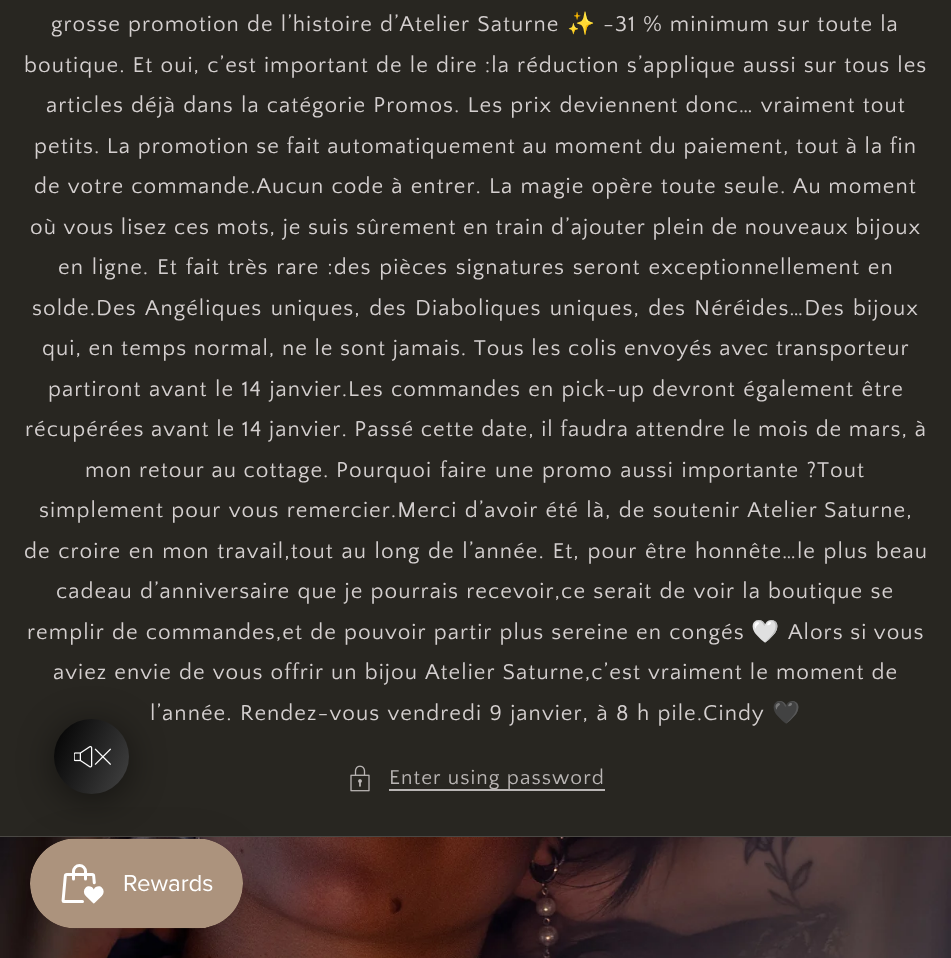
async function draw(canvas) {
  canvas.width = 951
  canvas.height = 958
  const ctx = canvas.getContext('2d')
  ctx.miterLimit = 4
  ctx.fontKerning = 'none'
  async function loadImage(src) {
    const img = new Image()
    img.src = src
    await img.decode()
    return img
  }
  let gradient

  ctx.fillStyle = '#282621'
  ctx.fillRect(0, 0, 951, 958)
  ctx.letterSpacing = '1.05px'
  ctx.wordSpacing = '0.5px'
  ctx.font = '22.5px Quattrocento Sans'
  ctx.fillStyle = '#d4cfcf'
  ctx.fillText('grosse promotion de l’histoire d’Atelier Saturne', 51, 31)
  ctx.wordSpacing = '0px'
  ctx.font = '22.5px Noto Color Emoji'
  ctx.fillText('✨', 567, 31)
  ctx.wordSpacing = '0.5px'
  ctx.font = '22.5px Quattrocento Sans'
  ctx.fillText('-31 % minimum sur toute la', 603, 31)
  ctx.fillText('boutique. Et oui, c’est important de le dire :la réduction s’applique aussi sur tous les', 24, 72)
  ctx.wordSpacing = '0.6px'
  ctx.fillText('articles déjà dans la catégorie Promos. Les prix deviennent donc… vraiment tout', 46, 112)
  ctx.wordSpacing = '0px'
  ctx.fillText('petits. La promotion se fait automatiquement au moment du paiement, tout à la fin', 34, 153)
  ctx.wordSpacing = '0.6px'
  ctx.fillText('de votre commande.Aucun code à entrer. La magie opère toute seule.', 34, 193)
  ctx.wordSpacing = '0px'
  ctx.fillText('Au moment', 793, 193)
  ctx.fillText('où vous lisez ces mots, je suis sûrement en train d’ajouter plein de nouveaux bijoux', 30, 234)
  ctx.wordSpacing = '1.25px'
  ctx.fillText('en ligne. Et fait très rare :des pièces signatures seront exceptionnellement en', 58, 274)
  ctx.wordSpacing = '1.75px'
  ctx.fillText('solde.Des Angéliques uniques, des Diaboliques uniques, des Néréides…Des bijoux', 32, 315)
  ctx.wordSpacing = '0px'
  ctx.fillText('qui, en temps normal, ne le sont jamais. Tous les colis envoyés avec transporteur', 42, 355)
  ctx.wordSpacing = '0.75px'
  ctx.fillText('partiront avant le 14 janvier.Les commandes en pick-up devront également être', 48, 396)
  ctx.wordSpacing = '0px'
  ctx.fillText('récupérées avant le 14 janvier. Passé cette date, il faudra attendre le mois de mars, à', 25, 436)
  ctx.fillText('mon retour au cottage.', 85, 477)
  ctx.wordSpacing = '1px'
  ctx.fillText('Pourquoi faire une promo aussi importante ?Tout', 336, 477)
  ctx.wordSpacing = '0.75px'
  ctx.fillText('simplement pour vous remercier.Merci d’avoir été là, de soutenir Atelier', 39, 517)
  ctx.fillText('Saturne,', 824, 517)
  ctx.wordSpacing = '1px'
  ctx.fillText('de croire en mon travail,tout au long de l’année. Et, pour être honnête…le plus beau', 24, 558)
  ctx.wordSpacing = '0.6px'
  ctx.fillText('cadeau d’anniversaire que je pourrais recevoir,ce serait de voir la boutique se', 56, 598)
  ctx.fillText('remplir de commandes,et de pouvoir partir plus sereine en congés', 27, 639)
  ctx.wordSpacing = '0px'
  ctx.font = '22.5px Noto Color Emoji'
  ctx.fillText('🤍', 751, 639)
  ctx.font = '22.5px Quattrocento Sans'
  ctx.fillText('Alors si vous', 788, 639)
  ctx.wordSpacing = '0.5px'
  ctx.fillText('aviez envie de vous offrir un bijou Atelier Saturne,c’est vraiment le moment de', 53, 679)
  ctx.wordSpacing = '0.75px'
  ctx.fillText('l’année. Rendez-vous vendredi 9 janvier, à 8 h pile.Cindy', 150, 720)
  ctx.wordSpacing = '0px'
  ctx.font = '22.5px Noto Color Emoji'
  ctx.fillText('🖤', 772, 720)
  ctx.drawImage(await loadImage('image0.png'), 350, 765, 20, 27)
  ctx.fillStyle = '#bab6b5'
  ctx.fillRect(389, 789, 216, 2)
  ctx.font = '21px Quattrocento Sans'
  ctx.fillText('Enter using password', 389, 784)
  ctx.fillStyle = '#4a4844'
  ctx.fillRect(0, 836, 951, 1)
  ctx.drawImage(await loadImage('image3.png'), 0, 837, 951, 121)
  ctx.fillStyle = '#00000080'
  ctx.filter = 'blur(18px)'
  ctx.beginPath()
  ctx.roundRect(54, 725, 75, 75, 37.5)
  ctx.fill()
  ctx.filter = 'none'
  gradient = ctx.createLinearGradient(46, 735, 137, 777)
  gradient.addColorStop(0, '#000')
  gradient.addColorStop(1, '#434343')
  ctx.fillStyle = gradient
  ctx.beginPath()
  ctx.arc(91.5, 756.5, 37.5, 0, 2 * Math.PI)
  ctx.fill()
  ctx.drawImage(await loadImage('image1.png'), 74, 746, 37, 22)
  ctx.fillStyle = '#0000000d'
  ctx.filter = 'blur(19px)'
  ctx.beginPath()
  ctx.roundRect(30, 839, 213, 90, 45)
  ctx.fill()
  ctx.filter = 'none'
  ctx.drawImage(await loadImage('image2.png'), 30, 838, 213, 91)
}

draw(document.querySelector('canvas'))
